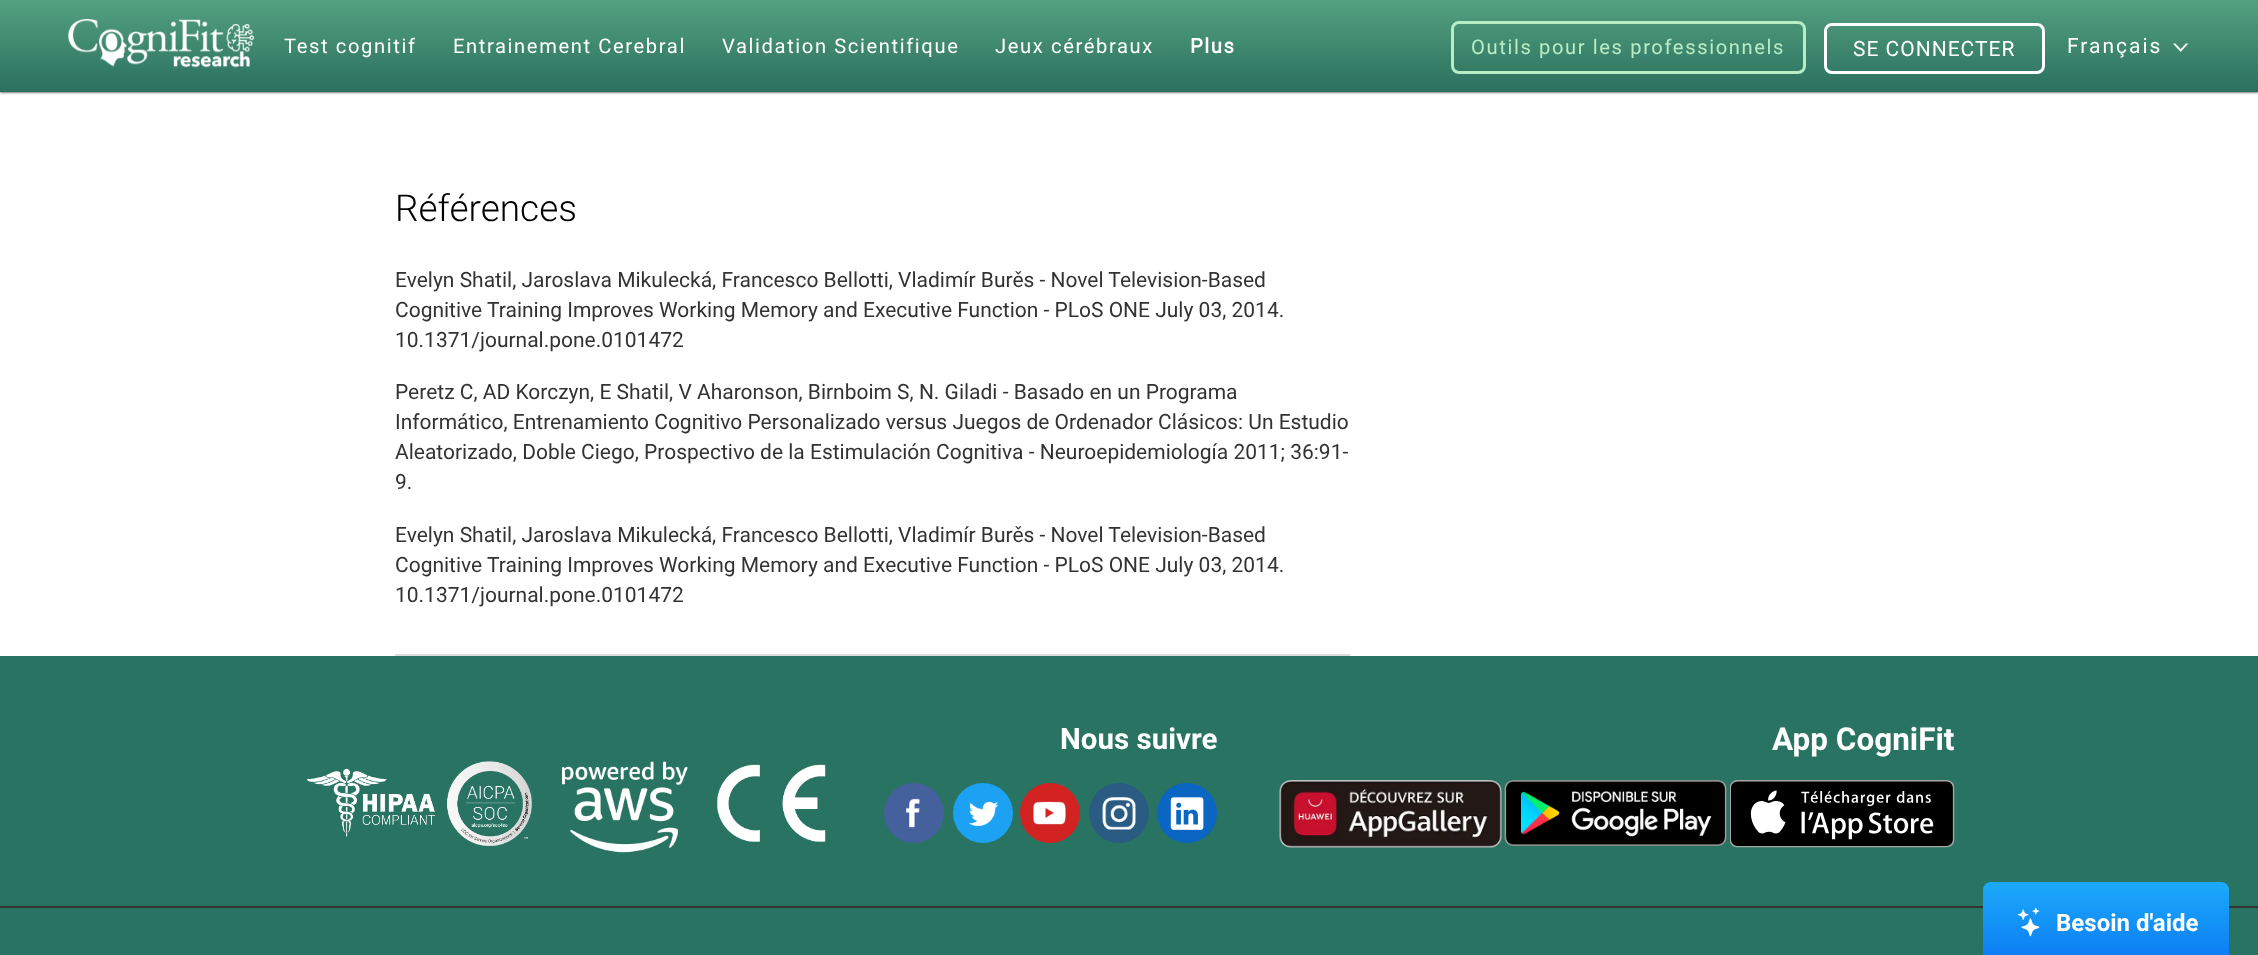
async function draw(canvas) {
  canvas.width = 2258
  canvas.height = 955
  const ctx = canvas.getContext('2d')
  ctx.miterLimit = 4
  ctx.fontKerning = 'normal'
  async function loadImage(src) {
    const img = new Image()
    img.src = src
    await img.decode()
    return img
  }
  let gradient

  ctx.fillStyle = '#fff'
  ctx.fillRect(0, 0, 2258, 955)
  ctx.fillStyle = '#000'
  ctx.filter = 'blur(1.5px)'
  ctx.beginPath()
  ctx.rect(0, 0, 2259, 92)
  ctx.fill()
  ctx.filter = 'none'
  gradient = ctx.createLinearGradient(1130, 0, 1130, 92)
  gradient.addColorStop(0.01, '#53a07f')
  gradient.addColorStop(1, '#2b705f')
  ctx.fillStyle = gradient
  ctx.fillRect(0, 0, 2258, 92)
  ctx.drawImage(await loadImage('image0.png'), 68, 19, 186, 49)
  ctx.letterSpacing = '1.6px'
  ctx.font = '20.2px Roboto'
  ctx.fillStyle = '#fff'
  ctx.fillText('Test cognitif', 284, 53)
  ctx.fillText('Entrainement Cerebral', 453, 53)
  ctx.fillText('Validation Scientifique', 722, 53)
  ctx.fillText('Jeux cérébraux', 995, 53)
  ctx.font = 'bold 20.2px "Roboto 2"'
  ctx.fillText('Plus', 1190, 53)
  ctx.beginPath()
  ctx.roundRect(1452.5, 22.5, 352, 50, 6.5)
  ctx.strokeStyle = '#b7ecc5'
  ctx.lineWidth = 3
  ctx.stroke()
  ctx.font = '20.2px Roboto'
  ctx.fillStyle = '#b7ecc5'
  ctx.fillText('Outils pour les professionnels', 1471, 54)
  ctx.beginPath()
  ctx.roundRect(1825.5, 24.5, 218, 48, 6.5)
  ctx.strokeStyle = '#fff'
  ctx.stroke()
  ctx.letterSpacing = '1px'
  ctx.font = '21px Roboto'
  ctx.fillStyle = '#fff'
  ctx.fillText('SE CONNECTER', 1853, 56)
  ctx.letterSpacing = '2px'
  ctx.fillText('Français', 2067, 53)
  ctx.drawImage(await loadImage('image1.png'), 2172, 43, 17, 10)
  ctx.letterSpacing = '0px'
  ctx.font = '300 37px Roboto'
  ctx.fillStyle = '#000'
  ctx.fillText('Références', 395, 221)
  ctx.font = '21px Roboto'
  ctx.fillStyle = '#333'
  ctx.fillText('Evelyn Shatil, Jaroslava Mikulecká, Francesco Bellotti, Vladimír Burěs - Novel Television-Based', 395, 287)
  ctx.fillText('Cognitive Training Improves Working Memory and Executive Function - PLoS ONE July 03, 2014.', 395, 317)
  ctx.fillText('10.1371/journal.pone.0101472', 395, 347)
  ctx.fillText('Peretz C, AD Korczyn, E Shatil, V Aharonson, Birnboim S, N. Giladi - Basado en un Programa', 395, 399)
  ctx.fillText('Informático, Entrenamiento Cognitivo Personalizado versus Juegos de Ordenador Clásicos: Un Estudio', 395, 429)
  ctx.fillText('Aleatorizado, Doble Ciego, Prospectivo de la Estimulación Cognitiva - Neuroepidemiología 2011; 36:91-', 395, 459)
  ctx.fillText('9.', 395, 489)
  ctx.fillText('Evelyn Shatil, Jaroslava Mikulecká, Francesco Bellotti, Vladimír Burěs - Novel Television-Based', 395, 542)
  ctx.fillText('Cognitive Training Improves Working Memory and Executive Function - PLoS ONE July 03, 2014.', 395, 572)
  ctx.fillText('10.1371/journal.pone.0101472', 395, 602)
  ctx.fillStyle = '#ddd'
  ctx.fillRect(395, 654, 955, 2)
  ctx.fillStyle = '#287361'
  ctx.fillRect(0, 656, 2258, 299)
  ctx.fillStyle = '#333'
  ctx.fillRect(0, 906, 2258, 2)
  ctx.font = 'bold 29.5px Roboto'
  ctx.fillStyle = '#fff'
  ctx.fillText('Nous suivre', 1060, 749)
  ctx.fillStyle = '#44619d'
  ctx.beginPath()
  ctx.arc(914, 813, 30, 0, 2 * Math.PI)
  ctx.fill()
  ctx.drawImage(await loadImage('image2.png'), 906, 798, 14, 30)
  ctx.fillStyle = '#1da1f2'
  ctx.beginPath()
  ctx.arc(983, 813, 30, 0, 2 * Math.PI)
  ctx.fill()
  ctx.drawImage(await loadImage('image3.png'), 968, 801, 31, 25)
  ctx.fillStyle = '#d22222'
  ctx.beginPath()
  ctx.arc(1050, 813, 30, 0, 2 * Math.PI)
  ctx.fill()
  ctx.drawImage(await loadImage('image4.png'), 1033, 801, 33, 24)
  ctx.fillStyle = '#2a5b83'
  ctx.beginPath()
  ctx.arc(1119, 813, 30, 0, 2 * Math.PI)
  ctx.fill()
  ctx.drawImage(await loadImage('image5.png'), 1102, 797, 34, 33)
  ctx.fillStyle = '#0a66c2'
  ctx.beginPath()
  ctx.arc(1187, 813, 30, 0, 2 * Math.PI)
  ctx.fill()
  ctx.drawImage(await loadImage('image6.png'), 1170, 797, 34, 33)
  ctx.font = 'bold 31.5px Roboto'
  ctx.fillStyle = '#fff'
  ctx.fillText('App CogniFit', 1772, 750)
  ctx.drawImage(await loadImage('image7.png'), 1279, 780, 223, 68)
  ctx.drawImage(await loadImage('image8.png'), 1504, 780, 223, 66)
  ctx.drawImage(await loadImage('image9.png'), 1730, 780, 225, 68)
  ctx.drawImage(await loadImage('image10.png'), 307, 761, 225, 85)
  ctx.drawImage(await loadImage('image11.png'), 562, 761, 126, 92)
  ctx.drawImage(await loadImage('image12.png'), 717, 764, 109, 78)
  gradient = ctx.createLinearGradient(2106, 882, 2106, 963)
  gradient.addColorStop(0, '#1caafa')
  gradient.addColorStop(1, '#0b7af4')
  ctx.fillStyle = gradient
  ctx.beginPath()
  ctx.roundRect(1983, 882, 246, 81, 8)
  ctx.fill()
  ctx.drawImage(await loadImage('image13.png'), 2017, 908, 23, 29)
  ctx.font = 'bold 24px Roboto'
  ctx.fillStyle = '#fff'
  ctx.fillText('Besoin d\'aide', 2056, 931)
}

draw(document.querySelector('canvas'))
